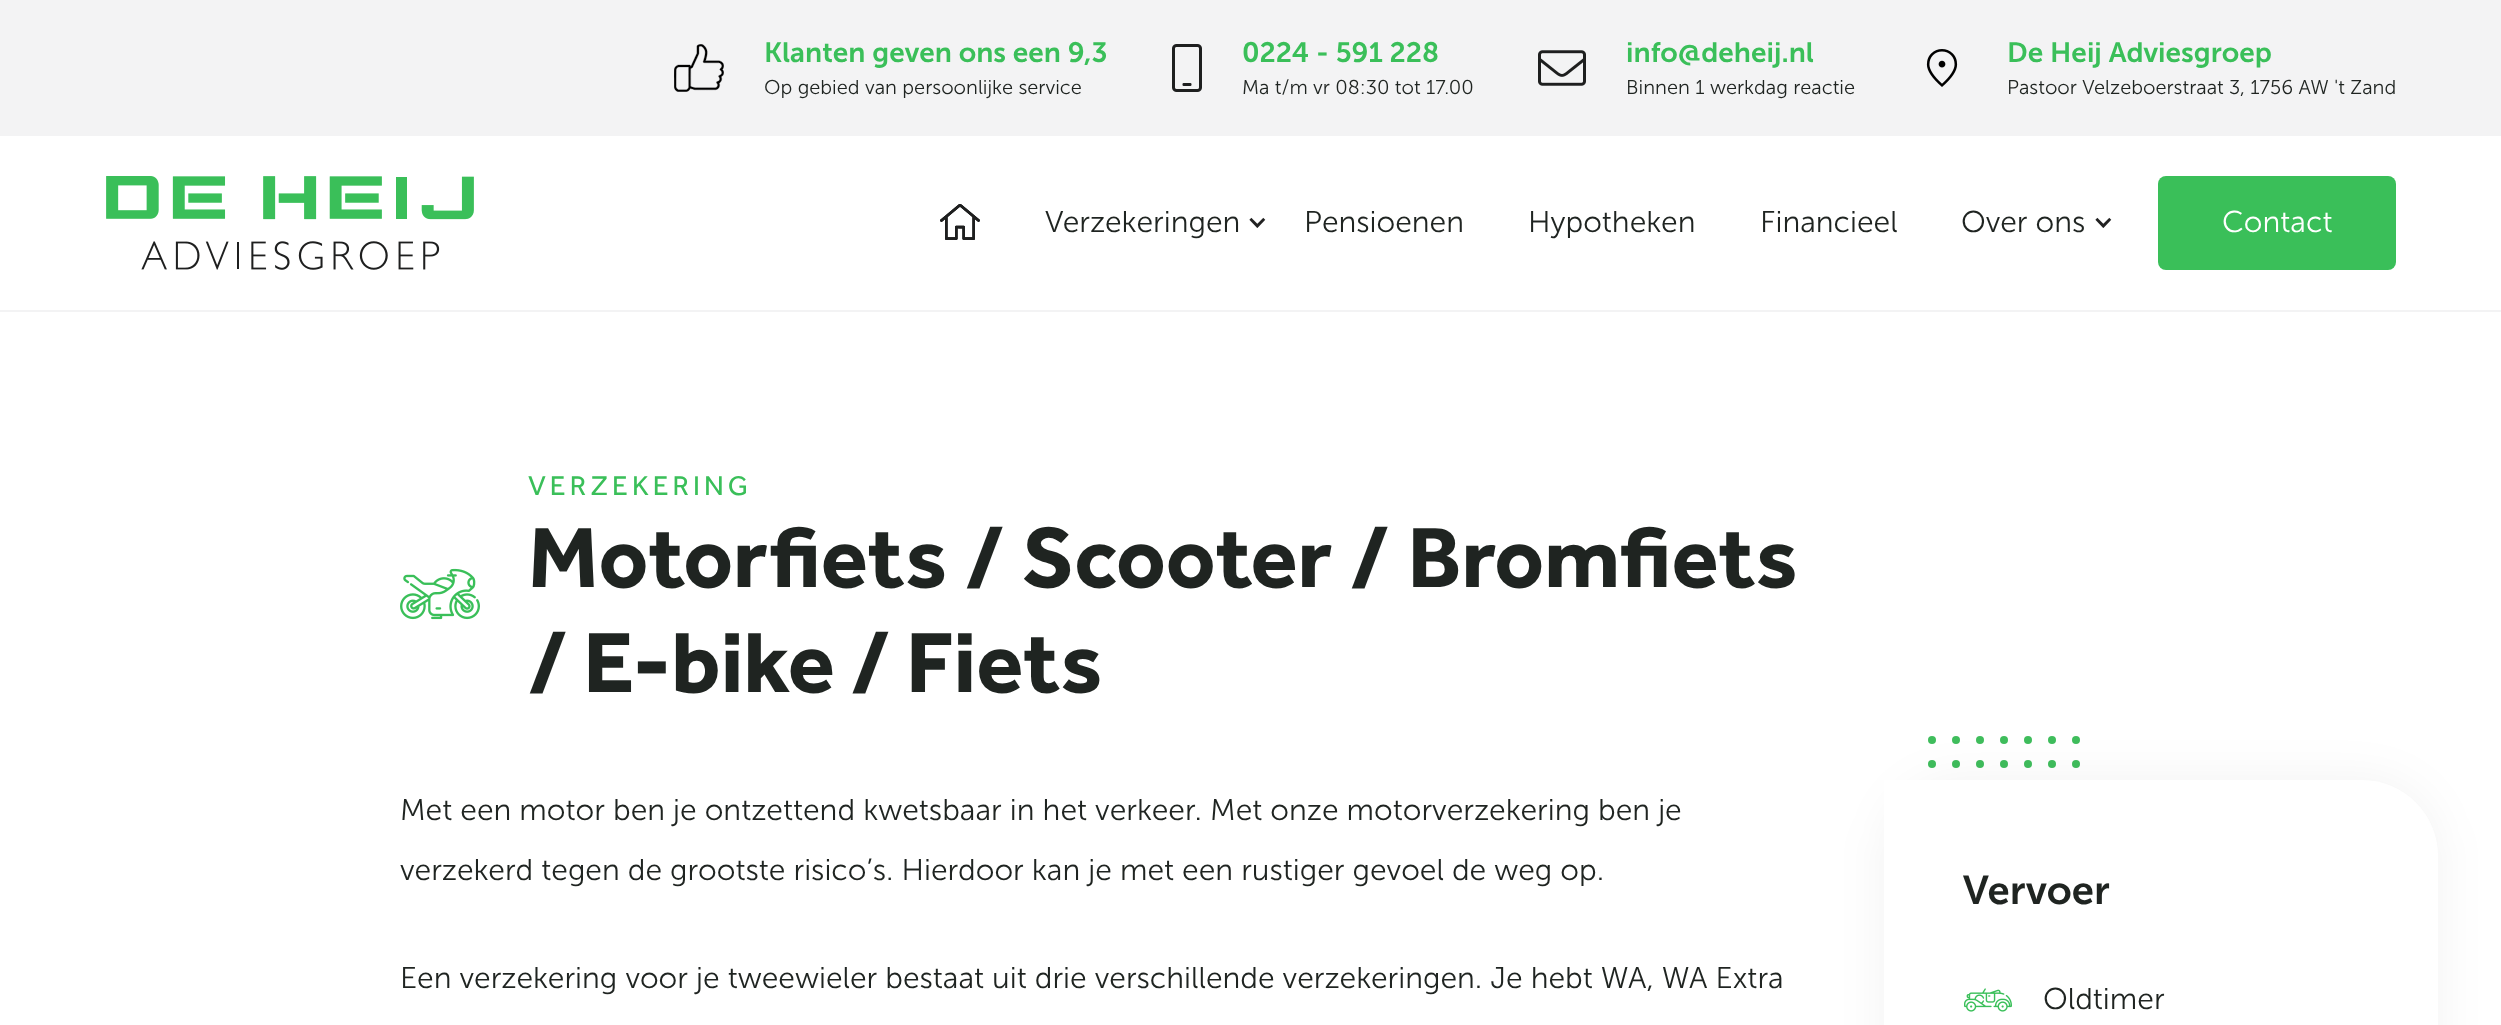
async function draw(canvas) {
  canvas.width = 2501
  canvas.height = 1025
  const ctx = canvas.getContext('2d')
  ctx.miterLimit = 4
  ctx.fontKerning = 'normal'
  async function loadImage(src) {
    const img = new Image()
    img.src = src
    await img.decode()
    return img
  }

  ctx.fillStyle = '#fff'
  ctx.fillRect(0, 0, 2501, 1025)
  ctx.fillStyle = '#f3f3f4'
  ctx.fillRect(0, 0, 2501, 136)
  ctx.drawImage(await loadImage('image0.png'), 674, 44, 50, 48)
  ctx.font = '600 28px "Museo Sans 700"'
  ctx.fillStyle = '#3abf59'
  ctx.fillText('Klanten geven ons een 9,3', 764, 62)
  ctx.font = '300 20px "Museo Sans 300"'
  ctx.fillStyle = '#1f2421'
  ctx.fillText('Op gebied van persoonlijke service', 764, 94)
  ctx.drawImage(await loadImage('image1.png'), 1172, 44, 30, 48)
  ctx.font = '600 28px "Museo Sans 700"'
  ctx.fillStyle = '#3abf59'
  ctx.fillText('0224 - 591 228', 1242, 62)
  ctx.font = '300 20px "Museo Sans 300"'
  ctx.fillStyle = '#1f2421'
  ctx.fillText('Ma t/m vr 08:30 tot 17.00', 1242, 94)
  ctx.drawImage(await loadImage('image2.png'), 1538, 50, 48, 36)
  ctx.font = '600 28px "Museo Sans 700"'
  ctx.fillStyle = '#3abf59'
  ctx.fillText('info@deheij.nl', 1626, 62)
  ctx.font = '300 20px "Museo Sans 300"'
  ctx.fillStyle = '#1f2421'
  ctx.fillText('Binnen 1 werkdag reactie', 1626, 94)
  ctx.drawImage(await loadImage('image3.png'), 1926, 49, 32, 38)
  ctx.font = '600 28px "Museo Sans 700"'
  ctx.fillStyle = '#3abf59'
  ctx.fillText('De Heij Adviesgroep', 2007, 62)
  ctx.font = '300 20px "Museo Sans 300"'
  ctx.fillStyle = '#1f2421'
  ctx.fillText('Pastoor Velzeboerstraat 3, 1756 AW \'t Zand', 2007, 94)
  ctx.fillStyle = '#f3f3f4'
  ctx.fillRect(0, 310, 2501, 2)
  ctx.drawImage(await loadImage('image4.png'), 106, 176, 368, 94)
  ctx.drawImage(await loadImage('image5.png'), 940, 204, 40, 36)
  ctx.font = '300 30px "Museo Sans 300"'
  ctx.fillStyle = '#1f2421'
  ctx.fillText('Verzekeringen', 1045, 232)
  ctx.drawImage(await loadImage('image6.png'), 1249, 217, 17, 11)
  ctx.fillText('Pensioenen', 1304, 232)
  ctx.fillText('Hypotheken', 1528, 232)
  ctx.fillText('Financieel', 1760, 232)
  ctx.fillText('Over ons', 1961, 232)
  ctx.drawImage(await loadImage('image6.png'), 2095, 217, 17, 11)
  ctx.fillStyle = '#3abf59'
  ctx.beginPath()
  ctx.roundRect(2158, 176, 238, 94, 8)
  ctx.fill()
  ctx.fillStyle = '#fff'
  ctx.fillText('Contact', 2222, 232)
  ctx.drawImage(await loadImage('image7.png'), 400, 568, 80, 52)
  ctx.letterSpacing = '4px'
  ctx.font = '28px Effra'
  ctx.fillStyle = '#3abf59'
  ctx.fillText('VERZEKERING', 528, 495)
  ctx.letterSpacing = '0px'
  ctx.wordSpacing = '2px'
  ctx.font = 'bold 88px Effra'
  ctx.fillStyle = '#1f2421'
  ctx.fillText('Motorfiets / Scooter / Bromfiets', 528, 587)
  ctx.wordSpacing = '0px'
  ctx.fillText('/ E-bike / Fiets', 528, 692)
  ctx.font = '300 30px "Museo Sans 300"'
  ctx.fillText('Met een motor ben je ontzettend kwetsbaar in het verkeer. Met onze motorverzekering ben je', 400, 820)
  ctx.fillText('verzekerd tegen de grootste risico’s. Hierdoor kan je met een rustiger gevoel de weg op.', 400, 880)
  ctx.fillText('Een verzekering voor je tweewieler bestaat uit drie verschillende verzekeringen. Je hebt WA, WA Extra', 400, 988)
  ctx.drawImage(await loadImage('image8.png'), 1928, 736, 152, 32)
  ctx.fillStyle = '#0000000d'
  ctx.filter = 'blur(24px)'
  ctx.beginPath()
  ctx.roundRect(1884, 780, 554, 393, 76)
  ctx.fill()
  ctx.filter = 'none'
  ctx.fillStyle = '#fff'
  ctx.beginPath()
  ctx.moveTo(1884, 780)
  ctx.lineTo(2362, 780)
  ctx.bezierCurveTo(2404, 780, 2438, 814, 2438, 856)
  ctx.lineTo(2438, 1025)
  ctx.bezierCurveTo(2438, 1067, 2404, 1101, 2362, 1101)
  ctx.lineTo(1960, 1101)
  ctx.bezierCurveTo(1918, 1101, 1884, 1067, 1884, 1025)
  ctx.closePath()
  ctx.fill()
  ctx.font = '600 40px "Museo Sans 700"'
  ctx.fillStyle = '#1f2421'
  ctx.fillText('Vervoer', 1963, 904)
  ctx.drawImage(await loadImage('image9.png'), 1964, 988, 48, 24)
  ctx.font = '300 30px "Museo Sans 300"'
  ctx.fillText('Oldtimer', 2043, 1009)
}

draw(document.querySelector('canvas'))
